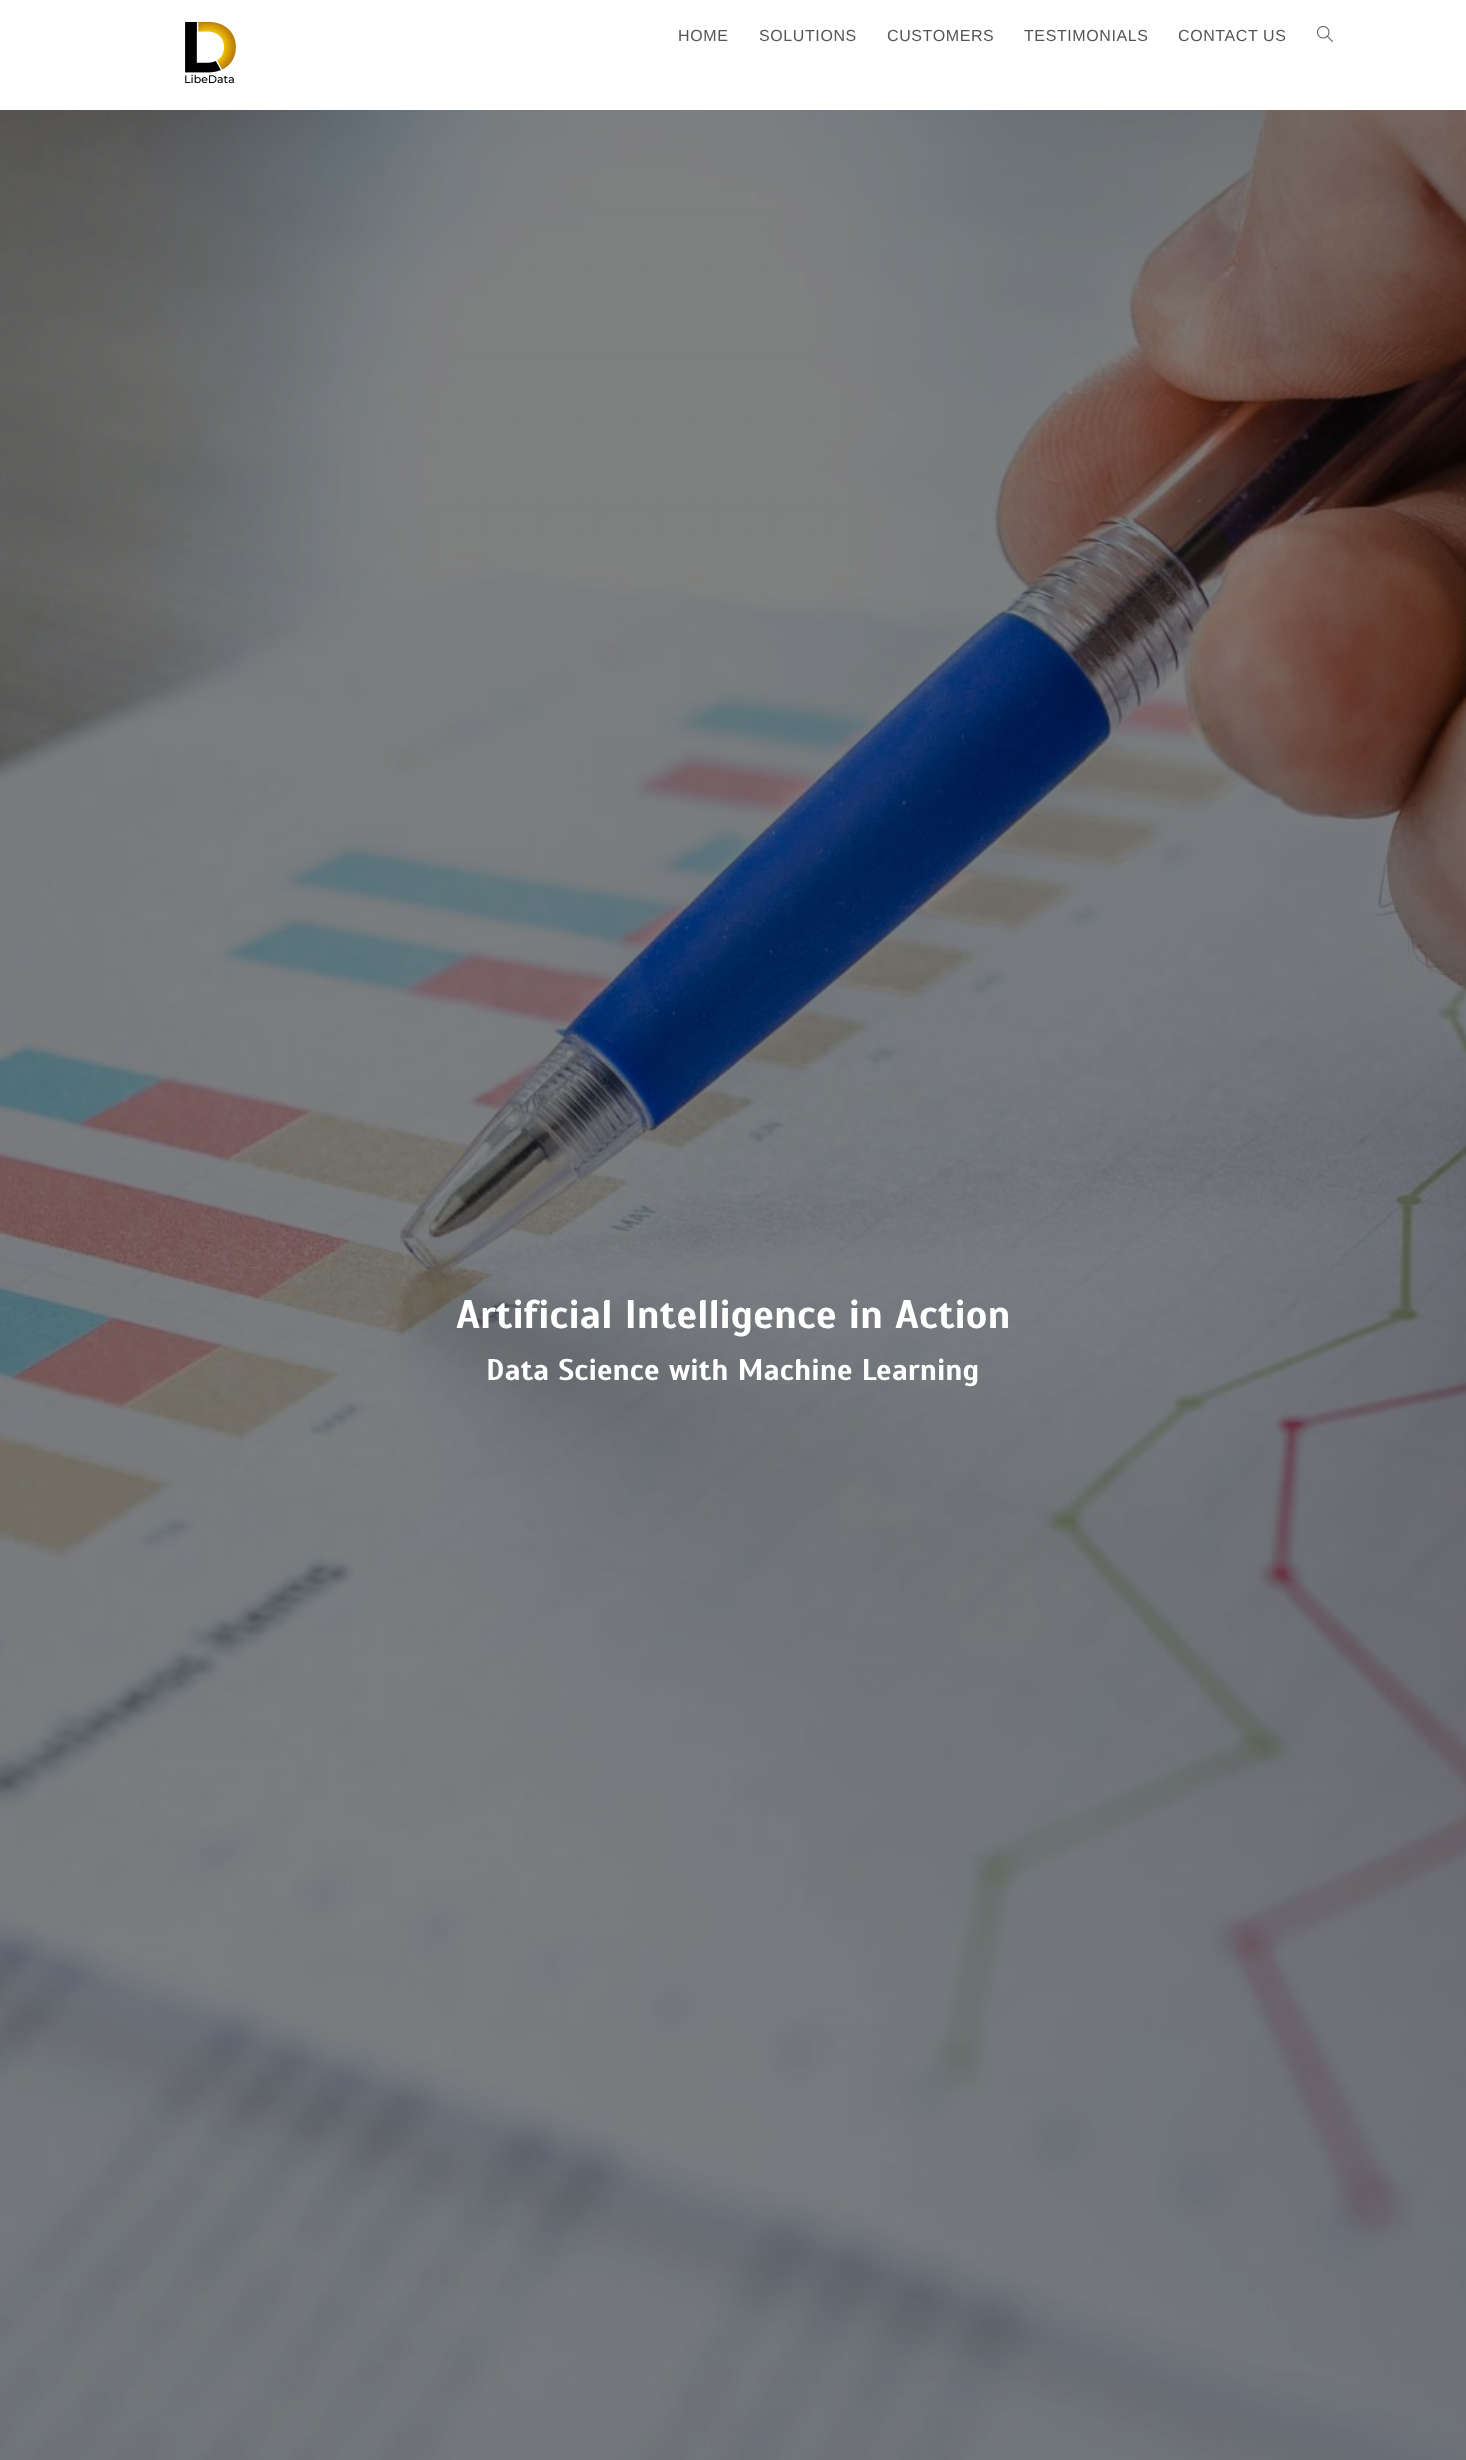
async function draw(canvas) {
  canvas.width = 1466
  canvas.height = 2460
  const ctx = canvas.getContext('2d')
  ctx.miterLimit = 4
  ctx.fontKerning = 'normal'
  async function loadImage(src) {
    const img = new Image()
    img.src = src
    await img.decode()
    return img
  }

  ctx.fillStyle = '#fff'
  ctx.fillRect(0, 0, 1466, 2460)
  ctx.drawImage(await loadImage('image0.png'), 185, 21, 51, 62)
  ctx.letterSpacing = '0.6px'
  ctx.font = '16px Liberation Sans'
  ctx.fillStyle = '#555'
  ctx.fillText('HOME', 678, 41)
  ctx.fillText('SOLUTIONS', 759, 41)
  ctx.fillText('CUSTOMERS', 887, 41)
  ctx.fillText('TESTIMONIALS', 1024, 41)
  ctx.fillText('CONTACT US', 1178, 41)
  ctx.drawImage(await loadImage('image1.png'), 1317, 26, 16, 16)
  ctx.drawImage(await loadImage('image2.png'), 0, 110, 1466, 2350)
  ctx.letterSpacing = '0px'
  ctx.font = 'bold 40px Scada'
  ctx.fillStyle = '#fff'
  ctx.fillText('Artificial Intelligence in Action', 456, 1328)
  ctx.font = 'bold 30px Scada'
  ctx.fillText('Data Science with Machine Learning', 486, 1380)
}

draw(document.querySelector('canvas'))
